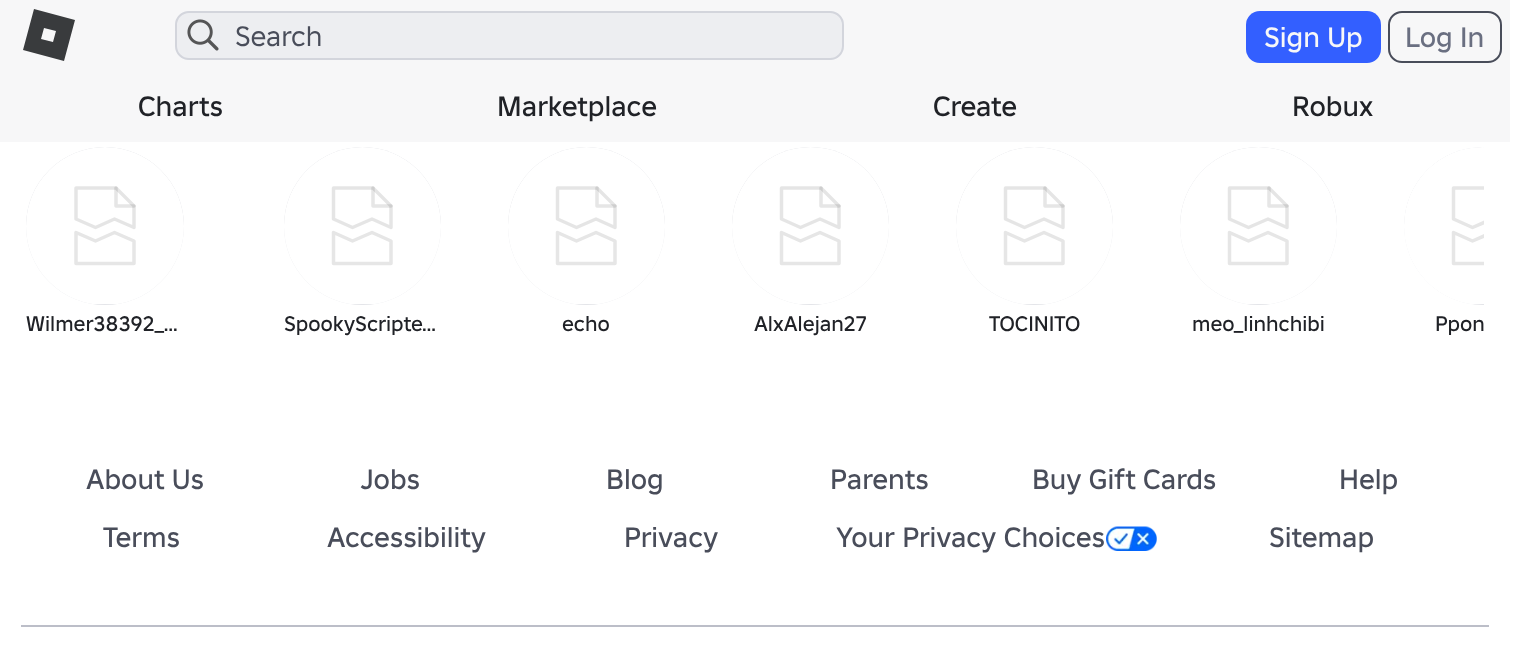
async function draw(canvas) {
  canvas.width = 1535
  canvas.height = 655
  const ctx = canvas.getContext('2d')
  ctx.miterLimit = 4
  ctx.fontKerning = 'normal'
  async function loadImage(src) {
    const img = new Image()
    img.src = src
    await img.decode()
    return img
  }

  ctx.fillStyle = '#fff'
  ctx.fillRect(0, 0, 1535, 655)
  ctx.fillStyle = '#f7f7f8'
  ctx.fillRect(0, 0, 1510, 142)
  ctx.fillStyle = '#393b3d'
  ctx.beginPath()
  ctx.moveTo(34, 9)
  ctx.lineTo(23, 50)
  ctx.lineTo(64, 61)
  ctx.lineTo(75, 20)
  ctx.closePath()
  ctx.moveTo(53, 42)
  ctx.lineTo(41, 39)
  ctx.lineTo(44, 28)
  ctx.lineTo(56, 31)
  ctx.closePath()
  ctx.fill()
  ctx.fillStyle = '#fff'
  ctx.beginPath()
  ctx.roundRect(175, 11, 669, 49, 14)
  ctx.fill()
  ctx.fillStyle = '#1b254b14'
  ctx.beginPath()
  ctx.roundRect(175, 11, 669, 49, 14)
  ctx.fill()
  ctx.beginPath()
  ctx.roundRect(176, 12, 667, 47, 13)
  ctx.strokeStyle = '#1b254b1f'
  ctx.lineWidth = 2
  ctx.stroke()
  ctx.drawImage(await loadImage('image0.png'), 187, 19, 32, 32)
  ctx.font = '28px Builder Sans'
  ctx.fillStyle = '#494d5a'
  ctx.fillText('Search', 235, 46)
  ctx.fillStyle = '#335fff'
  ctx.beginPath()
  ctx.roundRect(1246, 11, 135, 52, 14)
  ctx.fill()
  ctx.font = '500 28px Builder Sans'
  ctx.fillStyle = '#f7f7f8'
  ctx.fillText('Sign Up', 1264, 47)
  ctx.beginPath()
  ctx.roundRect(1389, 12, 112, 50, 13)
  ctx.strokeStyle = '#494d5a'
  ctx.stroke()
  ctx.fillStyle = '#6a6f81'
  ctx.fillText('Log In', 1405, 47)
  ctx.fillStyle = '#202227'
  ctx.fillText('Charts', 138, 116)
  ctx.fillText('Marketplace', 497, 116)
  ctx.fillText('Create', 933, 116)
  ctx.fillText('Robux', 1292, 116)
  ctx.fillStyle = '#e4e5e9'
  ctx.beginPath()
  ctx.arc(105, 226, 79, 0, 2 * Math.PI)
  ctx.fill()
  ctx.save()
  ctx.beginPath()
  ctx.roundRect(26, 147, 158, 158, 79)
  ctx.clip()
  ctx.fillStyle = '#fff'
  ctx.beginPath()
  ctx.roundRect(26, 147, 158, 157, [79, 79, 0, 0])
  ctx.fill()
  ctx.restore()
  ctx.beginPath()
  ctx.moveTo(116, 188)
  ctx.lineTo(116, 206)
  ctx.lineTo(134, 206)
  ctx.moveTo(76, 232.5)
  ctx.lineTo(76, 263.5)
  ctx.lineTo(134, 263.5)
  ctx.lineTo(134, 241)
  ctx.lineTo(114.5, 232.5)
  ctx.lineTo(95.5, 241)
  ctx.closePath()
  ctx.strokeStyle = '#e6e6e6'
  ctx.lineWidth = 3.5
  ctx.lineCap = 'round'
  ctx.lineJoin = 'round'
  ctx.stroke()
  ctx.beginPath()
  ctx.moveTo(134, 206)
  ctx.lineTo(116, 188)
  ctx.lineTo(76, 188)
  ctx.lineTo(76, 219)
  ctx.lineTo(95.5, 227.5)
  ctx.lineTo(114.5, 219)
  ctx.lineTo(134, 227.5)
  ctx.closePath()
  ctx.strokeStyle = '#0000001a'
  ctx.stroke()
  ctx.font = '500 21px Builder Sans'
  ctx.fillStyle = '#202227'
  ctx.fillText('Wilmer38392_…', 26, 331)
  ctx.fillStyle = '#e4e5e9'
  ctx.beginPath()
  ctx.roundRect(284, 147, 157, 158, 78.5)
  ctx.fill()
  ctx.save()
  ctx.beginPath()
  ctx.roundRect(284, 147, 157, 158, 78.5)
  ctx.clip()
  ctx.fillStyle = '#fff'
  ctx.beginPath()
  ctx.roundRect(284, 147, 157, 157, [78.5, 78.5, 0, 0])
  ctx.fill()
  ctx.restore()
  ctx.beginPath()
  ctx.moveTo(373, 188)
  ctx.lineTo(373, 206)
  ctx.lineTo(391, 206)
  ctx.moveTo(333.5, 232.5)
  ctx.lineTo(333.5, 263.5)
  ctx.lineTo(391, 263.5)
  ctx.lineTo(391, 241)
  ctx.lineTo(372, 232.5)
  ctx.lineTo(352.5, 241)
  ctx.closePath()
  ctx.strokeStyle = '#e6e6e6'
  ctx.stroke()
  ctx.beginPath()
  ctx.moveTo(391, 206)
  ctx.lineTo(373, 188)
  ctx.lineTo(333.5, 188)
  ctx.lineTo(333.5, 219)
  ctx.lineTo(352.5, 227.5)
  ctx.lineTo(372, 219)
  ctx.lineTo(391, 227.5)
  ctx.closePath()
  ctx.strokeStyle = '#0000001a'
  ctx.stroke()
  ctx.fillStyle = '#202227'
  ctx.fillText('SpookyScripte…', 284, 331)
  ctx.fillStyle = '#e4e5e9'
  ctx.beginPath()
  ctx.roundRect(508, 147, 157, 158, 78.5)
  ctx.fill()
  ctx.save()
  ctx.beginPath()
  ctx.roundRect(508, 147, 157, 158, 78.5)
  ctx.clip()
  ctx.fillStyle = '#fff'
  ctx.beginPath()
  ctx.roundRect(508, 147, 157, 157, [78.5, 78.5, 0, 0])
  ctx.fill()
  ctx.restore()
  ctx.beginPath()
  ctx.moveTo(597, 188)
  ctx.lineTo(597, 206)
  ctx.lineTo(615, 206)
  ctx.moveTo(557.5, 232.5)
  ctx.lineTo(557.5, 263.5)
  ctx.lineTo(615, 263.5)
  ctx.lineTo(615, 241)
  ctx.lineTo(596, 232.5)
  ctx.lineTo(576.5, 241)
  ctx.closePath()
  ctx.strokeStyle = '#e6e6e6'
  ctx.stroke()
  ctx.beginPath()
  ctx.moveTo(615, 206)
  ctx.lineTo(597, 188)
  ctx.lineTo(557.5, 188)
  ctx.lineTo(557.5, 219)
  ctx.lineTo(576.5, 227.5)
  ctx.lineTo(596, 219)
  ctx.lineTo(615, 227.5)
  ctx.closePath()
  ctx.strokeStyle = '#0000001a'
  ctx.stroke()
  ctx.fillStyle = '#202227'
  ctx.fillText('echo', 562, 331)
  ctx.fillStyle = '#e4e5e9'
  ctx.beginPath()
  ctx.roundRect(732, 147, 157, 158, 78.5)
  ctx.fill()
  ctx.save()
  ctx.beginPath()
  ctx.roundRect(732, 147, 157, 158, 78.5)
  ctx.clip()
  ctx.fillStyle = '#fff'
  ctx.beginPath()
  ctx.roundRect(732, 147, 157, 157, [78.5, 78.5, 0, 0])
  ctx.fill()
  ctx.restore()
  ctx.beginPath()
  ctx.moveTo(821, 188)
  ctx.lineTo(821, 206)
  ctx.lineTo(839, 206)
  ctx.moveTo(781.5, 232.5)
  ctx.lineTo(781.5, 263.5)
  ctx.lineTo(839, 263.5)
  ctx.lineTo(839, 241)
  ctx.lineTo(820, 232.5)
  ctx.lineTo(800.5, 241)
  ctx.closePath()
  ctx.strokeStyle = '#e6e6e6'
  ctx.stroke()
  ctx.beginPath()
  ctx.moveTo(839, 206)
  ctx.lineTo(821, 188)
  ctx.lineTo(781.5, 188)
  ctx.lineTo(781.5, 219)
  ctx.lineTo(800.5, 227.5)
  ctx.lineTo(820, 219)
  ctx.lineTo(839, 227.5)
  ctx.closePath()
  ctx.strokeStyle = '#0000001a'
  ctx.stroke()
  ctx.fillStyle = '#202227'
  ctx.fillText('AlxAlejan27', 754, 331)
  ctx.fillStyle = '#e4e5e9'
  ctx.beginPath()
  ctx.roundRect(956, 147, 157, 158, 78.5)
  ctx.fill()
  ctx.save()
  ctx.beginPath()
  ctx.roundRect(956, 147, 157, 158, 78.5)
  ctx.clip()
  ctx.fillStyle = '#fff'
  ctx.beginPath()
  ctx.roundRect(956, 147, 157, 157, [78.5, 78.5, 0, 0])
  ctx.fill()
  ctx.restore()
  ctx.beginPath()
  ctx.moveTo(1045, 188)
  ctx.lineTo(1045, 206)
  ctx.lineTo(1063, 206)
  ctx.moveTo(1005.5, 232.5)
  ctx.lineTo(1005.5, 263.5)
  ctx.lineTo(1063, 263.5)
  ctx.lineTo(1063, 241)
  ctx.lineTo(1044, 232.5)
  ctx.lineTo(1024.5, 241)
  ctx.closePath()
  ctx.strokeStyle = '#e6e6e6'
  ctx.stroke()
  ctx.beginPath()
  ctx.moveTo(1063, 206)
  ctx.lineTo(1045, 188)
  ctx.lineTo(1005.5, 188)
  ctx.lineTo(1005.5, 219)
  ctx.lineTo(1024.5, 227.5)
  ctx.lineTo(1044, 219)
  ctx.lineTo(1063, 227.5)
  ctx.closePath()
  ctx.strokeStyle = '#0000001a'
  ctx.stroke()
  ctx.fillStyle = '#202227'
  ctx.fillText('TOCINITO', 989, 331)
  ctx.fillStyle = '#e4e5e9'
  ctx.beginPath()
  ctx.roundRect(1180, 147, 157, 158, 78.5)
  ctx.fill()
  ctx.save()
  ctx.beginPath()
  ctx.roundRect(1180, 147, 157, 158, 78.5)
  ctx.clip()
  ctx.fillStyle = '#fff'
  ctx.beginPath()
  ctx.roundRect(1180, 147, 157, 157, [78.5, 78.5, 0, 0])
  ctx.fill()
  ctx.restore()
  ctx.beginPath()
  ctx.moveTo(1269, 188)
  ctx.lineTo(1269, 206)
  ctx.lineTo(1287, 206)
  ctx.moveTo(1229.5, 232.5)
  ctx.lineTo(1229.5, 263.5)
  ctx.lineTo(1287, 263.5)
  ctx.lineTo(1287, 241)
  ctx.lineTo(1268, 232.5)
  ctx.lineTo(1248.5, 241)
  ctx.closePath()
  ctx.strokeStyle = '#e6e6e6'
  ctx.stroke()
  ctx.beginPath()
  ctx.moveTo(1287, 206)
  ctx.lineTo(1269, 188)
  ctx.lineTo(1229.5, 188)
  ctx.lineTo(1229.5, 219)
  ctx.lineTo(1248.5, 227.5)
  ctx.lineTo(1268, 219)
  ctx.lineTo(1287, 227.5)
  ctx.closePath()
  ctx.strokeStyle = '#0000001a'
  ctx.stroke()
  ctx.fillStyle = '#202227'
  ctx.fillText('meo_linhchibi', 1192, 331)
  ctx.save()
  ctx.beginPath()
  ctx.roundRect(1404, 147, 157, 158, 78.5)
  ctx.clip()
  ctx.fillStyle = '#e4e5e9'
  ctx.beginPath()
  ctx.roundRect(1404, 147, 80, 158, [78.5, 0, 0, 78.5])
  ctx.fill()
  ctx.fillStyle = '#fff'
  ctx.beginPath()
  ctx.roundRect(1404, 147, 80, 157, [78.5, 0, 0, 0])
  ctx.fill()
  ctx.restore()
  ctx.save()
  ctx.beginPath()
  ctx.rect(1404, 147, 80, 158)
  ctx.clip()
  ctx.beginPath()
  ctx.moveTo(1493, 188)
  ctx.lineTo(1493, 206)
  ctx.lineTo(1511, 206)
  ctx.moveTo(1453.5, 232.5)
  ctx.lineTo(1453.5, 263.5)
  ctx.lineTo(1511, 263.5)
  ctx.lineTo(1511, 241)
  ctx.lineTo(1492, 232.5)
  ctx.lineTo(1472.5, 241)
  ctx.closePath()
  ctx.strokeStyle = '#e6e6e6'
  ctx.stroke()
  ctx.beginPath()
  ctx.moveTo(1511, 206)
  ctx.lineTo(1493, 188)
  ctx.lineTo(1453.5, 188)
  ctx.lineTo(1453.5, 219)
  ctx.lineTo(1472.5, 227.5)
  ctx.lineTo(1492, 219)
  ctx.lineTo(1511, 227.5)
  ctx.closePath()
  ctx.stroke()
  ctx.restore()
  ctx.fillText('Ppon', 1435, 331)
  ctx.font = '500 28px Builder Sans'
  ctx.fillStyle = '#494d5a'
  ctx.fillText('About Us', 86, 489)
  ctx.fillText('Jobs', 360, 489)
  ctx.fillText('Blog', 606, 489)
  ctx.fillText('Parents', 830, 489)
  ctx.fillText('Buy Gift Cards', 1032, 489)
  ctx.fillText('Help', 1339, 489)
  ctx.fillText('Terms', 103, 547)
  ctx.fillText('Accessibility', 327, 547)
  ctx.fillText('Privacy', 624, 547)
  ctx.fillText('Your Privacy Choices', 836, 547)
  ctx.drawImage(await loadImage('image1.png'), 1106, 526, 51, 25)
  ctx.fillText('Sitemap', 1269, 547)
  ctx.fillStyle = '#bcbec8'
  ctx.fillRect(21, 625, 1468, 2)
}

draw(document.querySelector('canvas'))
